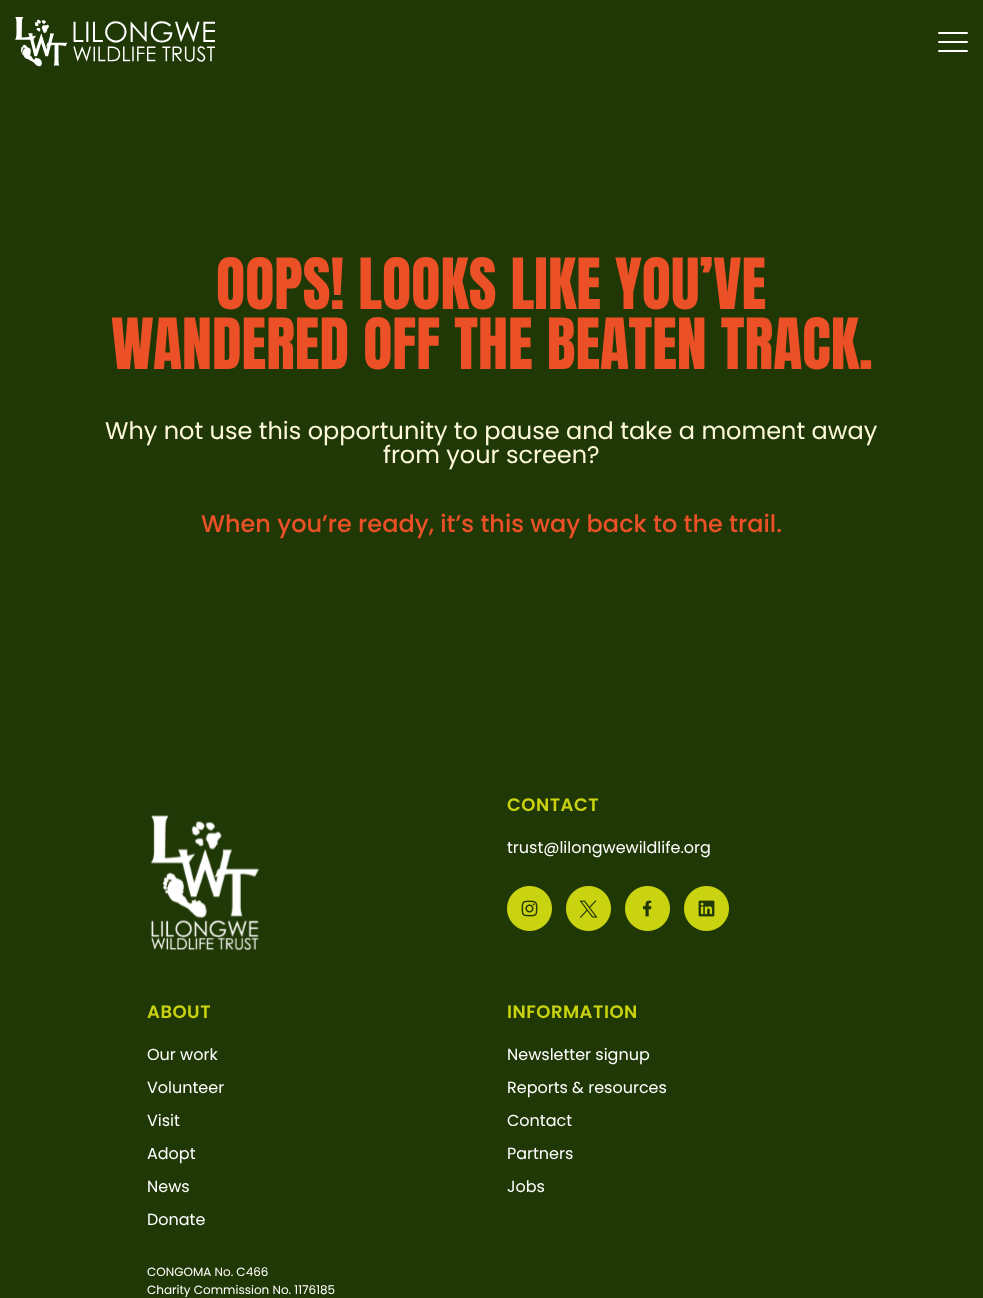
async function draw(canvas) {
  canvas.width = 983
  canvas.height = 1298
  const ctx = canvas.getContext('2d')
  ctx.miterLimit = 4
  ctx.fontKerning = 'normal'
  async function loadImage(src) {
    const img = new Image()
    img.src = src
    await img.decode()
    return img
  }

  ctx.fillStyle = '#203805'
  ctx.fillRect(0, 0, 983, 1298)
  ctx.drawImage(await loadImage('image0.png'), 15, 17, 200, 50)
  ctx.fillStyle = '#fff'
  ctx.beginPath()
  ctx.roundRect(938, 32, 30, 2, 1)
  ctx.fill()
  ctx.beginPath()
  ctx.roundRect(938, 41, 30, 2, 1)
  ctx.fill()
  ctx.beginPath()
  ctx.roundRect(938, 50, 30, 2, 1)
  ctx.fill()
  ctx.font = '60px Anton'
  ctx.fillStyle = '#eb5027'
  ctx.fillText('OOPS! LOOKS LIKE YOU’VE', 216, 309)
  ctx.fillText('WANDERED OFF THE BEATEN TRACK.', 111, 369)
  ctx.font = '24px Poppins'
  ctx.fillStyle = '#fef9dc'
  ctx.fillText('Why not use this opportunity to pause and take a moment away', 105, 439)
  ctx.fillText('from your screen?', 383, 463)
  ctx.font = '500 24px Poppins'
  ctx.fillStyle = '#eb5027'
  ctx.fillText('When you’re ready, it’s this way back to the trail.', 201, 532)
  ctx.drawImage(await loadImage('image1.png'), 150, 815, 109, 136)
  ctx.letterSpacing = '0.5px'
  ctx.font = '600 18px Poppins'
  ctx.fillStyle = '#cad30f'
  ctx.fillText('CONTACT', 507, 811)
  ctx.letterSpacing = '0px'
  ctx.font = '16px Poppins'
  ctx.fillStyle = '#fff'
  ctx.fillText('trust@lilongwewildlife.org', 507, 853)
  ctx.drawImage(await loadImage('image2.png'), 507, 886, 45, 45)
  ctx.drawImage(await loadImage('image3.png'), 566, 886, 45, 45)
  ctx.drawImage(await loadImage('image4.png'), 625, 886, 45, 45)
  ctx.drawImage(await loadImage('image5.png'), 684, 886, 45, 45)
  ctx.letterSpacing = '0.5px'
  ctx.font = '600 18px Poppins'
  ctx.fillStyle = '#cad30f'
  ctx.fillText('ABOUT', 147, 1018)
  ctx.letterSpacing = '0px'
  ctx.font = '16px Poppins'
  ctx.fillStyle = '#fff'
  ctx.fillText('Our work', 147, 1060)
  ctx.fillText('Volunteer', 147, 1093)
  ctx.fillText('Visit', 147, 1126)
  ctx.fillText('Adopt', 147, 1159)
  ctx.fillText('News', 147, 1192)
  ctx.fillText('Donate', 147, 1225)
  ctx.letterSpacing = '0.5px'
  ctx.font = '600 18px Poppins'
  ctx.fillStyle = '#cad30f'
  ctx.fillText('INFORMATION', 507, 1018)
  ctx.letterSpacing = '0px'
  ctx.font = '16px Poppins'
  ctx.fillStyle = '#fff'
  ctx.fillText('Newsletter signup', 507, 1060)
  ctx.fillText('Reports & resources', 507, 1093)
  ctx.fillText('Contact', 507, 1126)
  ctx.fillText('Partners', 507, 1159)
  ctx.fillText('Jobs', 507, 1192)
  ctx.font = '12px Poppins'
  ctx.fillText('CONGOMA No. C466', 147, 1276)
  ctx.fillText('Charity Commission No. 1176185', 147, 1294)
}

draw(document.querySelector('canvas'))
